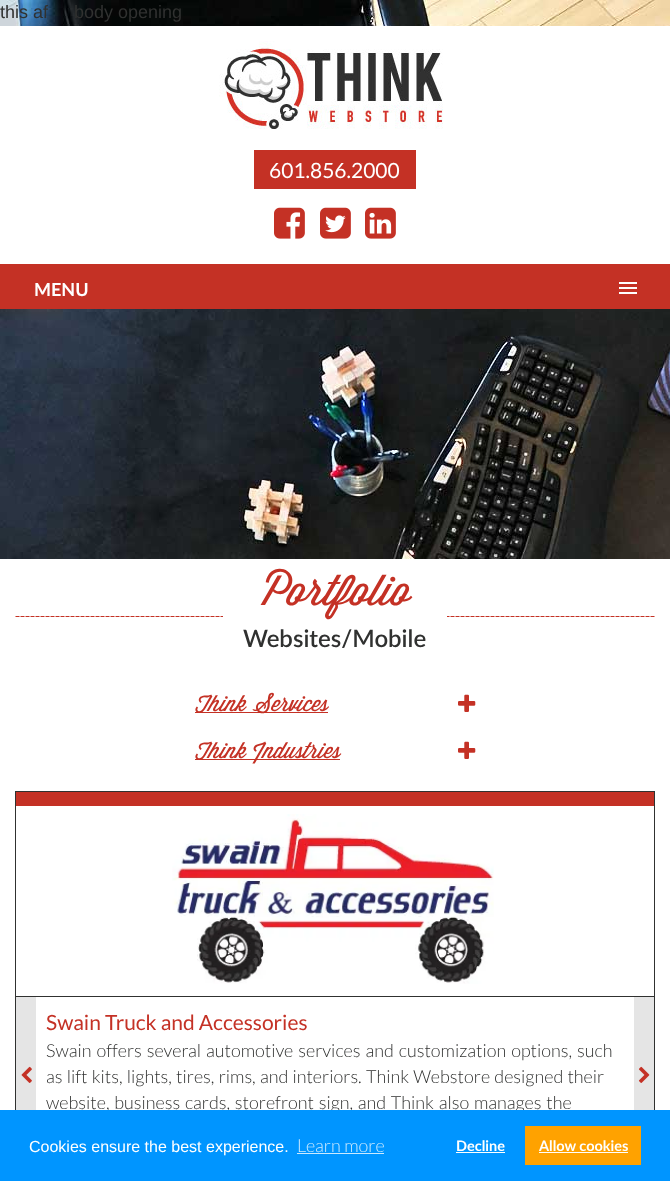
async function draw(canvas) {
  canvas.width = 670
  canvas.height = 1181
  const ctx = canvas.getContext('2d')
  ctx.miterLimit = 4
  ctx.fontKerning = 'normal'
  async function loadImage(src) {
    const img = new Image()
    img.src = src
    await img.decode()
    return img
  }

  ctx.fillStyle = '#fff'
  ctx.fillRect(0, 0, 670, 1181)
  ctx.drawImage(await loadImage('image0.png'), 0, 0, 670, 559)
  ctx.font = '18px Liberation Sans'
  ctx.fillStyle = '#303130'
  ctx.fillText('this af', 0, 18)
  ctx.fillText('body opening', 74, 18)
  ctx.fillStyle = '#fff'
  ctx.fillRect(0, 26, 670, 238)
  ctx.drawImage(await loadImage('image1.png'), 219, 41, 224, 88)
  ctx.fillStyle = '#c43125'
  ctx.fillRect(254, 150, 162, 39)
  ctx.font = '21px Lato'
  ctx.fillStyle = '#fff'
  ctx.fillText('601.856.2000', 269, 178)
  ctx.drawImage(await loadImage('image2.png'), 274, 207, 31, 32)
  ctx.drawImage(await loadImage('image3.png'), 320, 207, 31, 32)
  ctx.drawImage(await loadImage('image4.png'), 365, 207, 31, 32)
  ctx.fillStyle = '#c43125'
  ctx.fillRect(0, 264, 670, 45)
  ctx.font = 'bold 18px Lato'
  ctx.fillStyle = '#fff'
  ctx.fillText('MENU', 34, 296)
  ctx.fillRect(619, 282, 18, 2)
  ctx.fillRect(619, 287, 18, 2)
  ctx.fillRect(619, 292, 18, 2)
  ctx.drawImage(await loadImage('image5.png'), 15, 616, 640, 1)
  ctx.fillRect(223, 616, 224, 1)
  ctx.font = '42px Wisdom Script'
  ctx.fillStyle = '#c43125'
  ctx.fillText('Portfolio', 260, 605)
  ctx.font = '600 24px Lato'
  ctx.fillStyle = '#303130'
  ctx.fillText('Websites/Mobile', 243, 647)
  ctx.fillStyle = '#c43125'
  ctx.fillRect(195, 712, 133, 1)
  ctx.font = '22px Wisdom Script'
  ctx.fillText('Think Services', 195, 711)
  ctx.drawImage(await loadImage('image6.png'), 458, 694, 18, 18)
  ctx.fillRect(195, 759, 145, 1)
  ctx.fillText('Think Industries', 195, 758)
  ctx.drawImage(await loadImage('image6.png'), 458, 741, 18, 18)
  ctx.fillRect(16, 792, 638, 14)
  ctx.fillStyle = '#303130'
  ctx.fillRect(15, 791, 640, 1)
  ctx.fillRect(654, 791, 1, 319)
  ctx.fillRect(15, 791, 1, 15)
  ctx.fillRect(15, 996, 640, 1)
  ctx.fillRect(15, 806, 1, 304)
  ctx.drawImage(await loadImage('image7.png'), 172, 814, 322, 170)
  ctx.fillStyle = '#e5e5e5'
  ctx.fillRect(16, 997, 20, 113)
  ctx.drawImage(await loadImage('image8.png'), 21, 1066, 11, 17)
  ctx.font = '21px Lato'
  ctx.fillStyle = '#c43125'
  ctx.fillText('Swain Truck and Accessories', 46, 1030)
  ctx.fillStyle = '#e5e5e5'
  ctx.fillRect(634, 997, 20, 113)
  ctx.drawImage(await loadImage('image9.png'), 638, 1066, 12, 17)
  ctx.wordSpacing = '1.5px'
  ctx.font = '300 18px Lato'
  ctx.fillStyle = '#303130'
  ctx.fillText('Swain offers several automotive services and customization options, such', 46, 1057)
  ctx.wordSpacing = '0.75px'
  ctx.fillText('as lift kits, lights, tires, rims, and interiors. Think Webstore designed their', 46, 1083)
  ctx.wordSpacing = '1.25px'
  ctx.fillText('website, business cards, storefront sign, and Think also manages the', 46, 1109)
  ctx.fillStyle = '#0095ff'
  ctx.fillRect(0, 1110, 670, 71)
  ctx.wordSpacing = '0px'
  ctx.font = '16px Liberation Sans'
  ctx.fillStyle = '#fff'
  ctx.fillText('Cookies ensure the best experience.', 29, 1152)
  ctx.font = '300 18px Lato'
  ctx.fillStyle = '#cceaff'
  ctx.fillText('Learn more', 297, 1152)
  ctx.fillRect(297, 1153, 87, 1)
  ctx.font = 'bold 14.5px Lato'
  ctx.fillStyle = '#fff'
  ctx.fillText('Decline', 456, 1151)
  ctx.fillRect(456, 1152, 49, 1)
  ctx.fillStyle = '#ffa200'
  ctx.fillRect(525, 1126, 116, 39)
  ctx.fillStyle = '#fff'
  ctx.fillText('Allow cookies', 539, 1151)
  ctx.fillRect(539, 1152, 89, 1)
}

draw(document.querySelector('canvas'))
